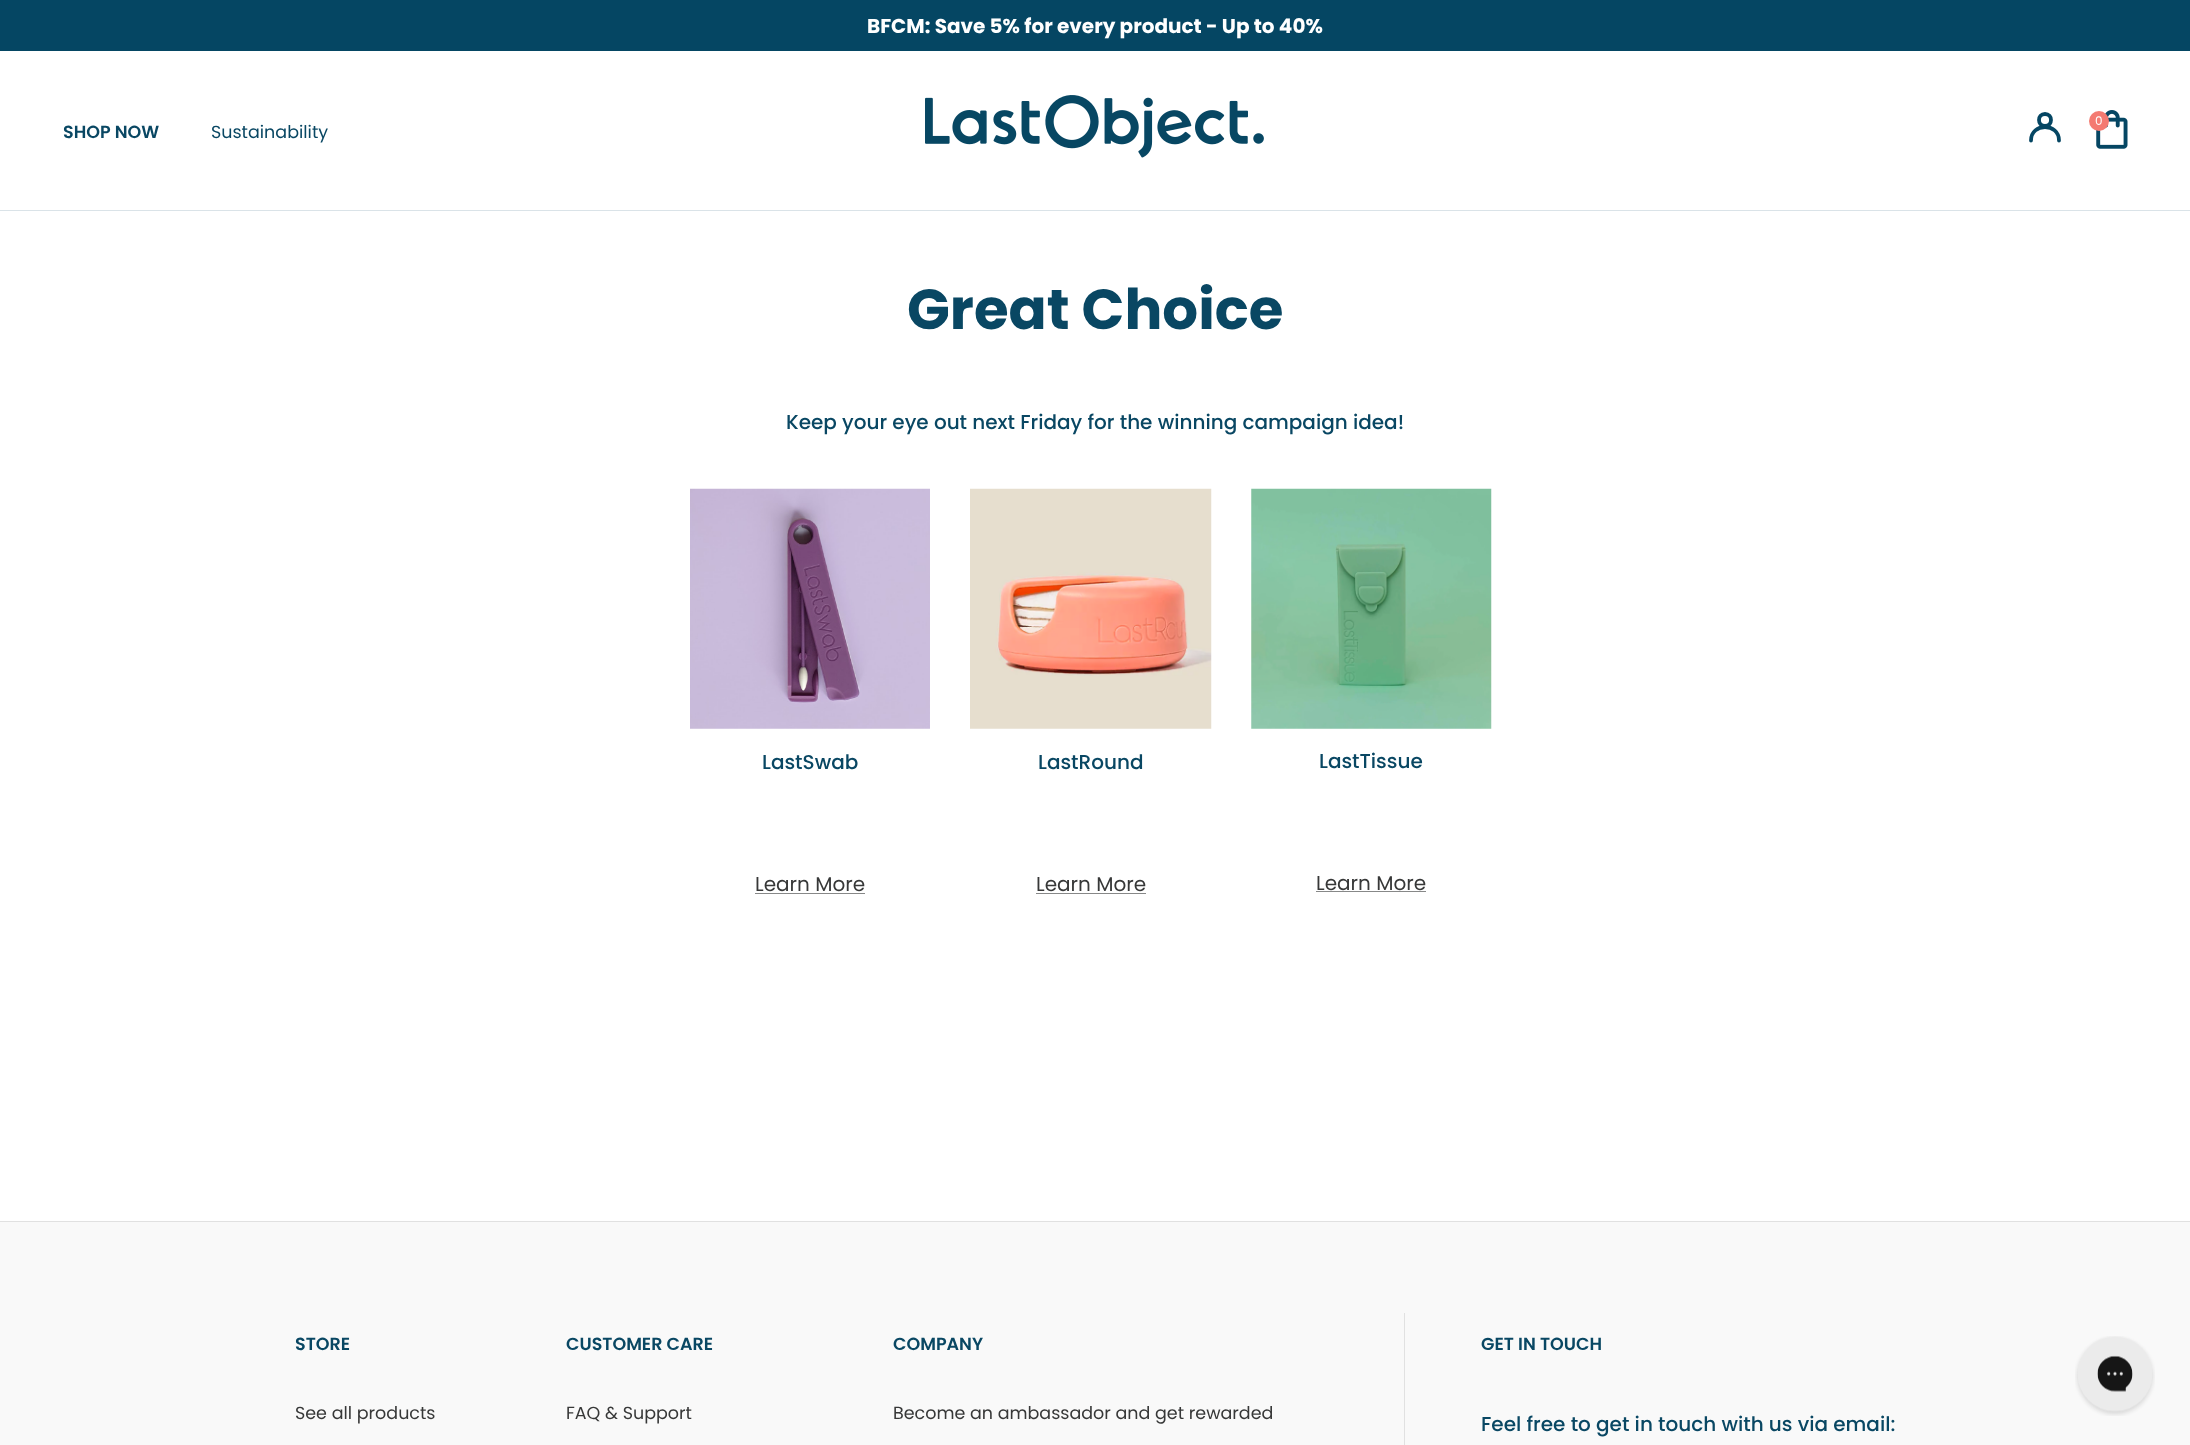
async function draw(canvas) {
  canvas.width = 2190
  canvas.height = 1445
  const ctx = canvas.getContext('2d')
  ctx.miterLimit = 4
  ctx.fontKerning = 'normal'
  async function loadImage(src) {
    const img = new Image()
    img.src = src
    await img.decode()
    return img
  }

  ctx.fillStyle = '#fff'
  ctx.fillRect(0, 0, 2190, 1445)
  ctx.fillStyle = '#054663'
  ctx.fillRect(0, 0, 2190, 51)
  ctx.font = 'bold 20px Poppins'
  ctx.fillStyle = '#fff'
  ctx.fillText('BFCM: Save 5% for every product - Up to 40%', 867, 33)
  ctx.fillStyle = '#dae3e8'
  ctx.fillRect(0, 210, 2190, 1)
  ctx.drawImage(await loadImage('image0.png'), 925, 95, 339, 63)
  ctx.beginPath()
  ctx.moveTo(2045, 126)
  ctx.bezierCurveTo(2053, 126, 2053, 114, 2045, 114)
  ctx.bezierCurveTo(2037, 114, 2037, 126, 2045, 126)
  ctx.closePath()
  ctx.moveTo(2059, 140.5)
  ctx.bezierCurveTo(2059, 122.5, 2031, 122.5, 2031, 140.5)
  ctx.strokeStyle = '#054663'
  ctx.lineWidth = 3.8
  ctx.lineCap = 'round'
  ctx.lineJoin = 'round'
  ctx.stroke()
  ctx.drawImage(await loadImage('image1.png'), 2096, 110, 32, 39)
  ctx.fillStyle = '#f47a71'
  ctx.beginPath()
  ctx.arc(2099, 121, 10, 0, 2 * Math.PI)
  ctx.fill()
  ctx.font = '12px Poppins'
  ctx.fillStyle = '#fff'
  ctx.fillText('0', 2095, 125)
  ctx.font = '600 17.5px Poppins'
  ctx.fillStyle = '#094763'
  ctx.fillText('SHOP NOW', 63, 138)
  ctx.font = '17.5px Poppins'
  ctx.fillText('Sustainability', 211, 138)
  ctx.font = 'bold 56.25px Poppins'
  ctx.fillText('Great Choice', 907, 329)
  ctx.font = '500 20px Poppins'
  ctx.fillText('Keep your eye out next Friday for the winning campaign idea!', 786, 429)
  ctx.drawImage(await loadImage('image2.png'), 690, 488, 240, 241)
  ctx.fillText('LastSwab', 762, 769)
  ctx.font = '20px Poppins'
  ctx.fillStyle = '#373838'
  ctx.fillText('Learn More', 755, 891)
  ctx.fillStyle = '#878888'
  ctx.fillRect(755, 893, 110, 1)
  ctx.drawImage(await loadImage('image3.png'), 970, 488, 242, 241)
  ctx.font = '500 20px Poppins'
  ctx.fillStyle = '#094763'
  ctx.fillText('LastRound', 1038, 769)
  ctx.font = '20px Poppins'
  ctx.fillStyle = '#373838'
  ctx.fillText('Learn More', 1036, 891)
  ctx.fillStyle = '#878888'
  ctx.fillRect(1036, 893, 110, 1)
  ctx.drawImage(await loadImage('image4.png'), 1251, 488, 241, 241)
  ctx.font = '500 20px Poppins'
  ctx.fillStyle = '#094763'
  ctx.fillText('LastTissue', 1319, 768)
  ctx.font = '20px Poppins'
  ctx.fillStyle = '#373838'
  ctx.fillText('Learn More', 1316, 890)
  ctx.fillStyle = '#878888'
  ctx.fillRect(1316, 891, 110, 1)
  ctx.fillStyle = '#f9f9f9'
  ctx.fillRect(0, 1222, 2190, 223)
  ctx.fillStyle = '#e1e1e1'
  ctx.fillRect(0, 1221, 2190, 1)
  ctx.font = '600 17.5px Poppins'
  ctx.fillStyle = '#094763'
  ctx.fillText('STORE', 295, 1350)
  ctx.font = '17.5px Poppins'
  ctx.fillStyle = '#373838'
  ctx.fillText('See all products', 295, 1419)
  ctx.font = '600 17.5px Poppins'
  ctx.fillStyle = '#094763'
  ctx.fillText('CUSTOMER CARE', 566, 1350)
  ctx.font = '17.5px Poppins'
  ctx.fillStyle = '#373838'
  ctx.fillText('FAQ & Support', 566, 1419)
  ctx.font = '600 17.5px Poppins'
  ctx.fillStyle = '#094763'
  ctx.fillText('COMPANY', 893, 1350)
  ctx.font = '17.5px Poppins'
  ctx.fillStyle = '#373838'
  ctx.fillText('Become an ambassador and get rewarded', 893, 1419)
  ctx.fillStyle = '#e1e1e1'
  ctx.fillRect(1404, 1313, 1, 132)
  ctx.font = '600 17.5px Poppins'
  ctx.fillStyle = '#094763'
  ctx.fillText('GET IN TOUCH', 1481, 1350)
  ctx.font = '500 20px Poppins'
  ctx.fillText('Feel free to get in touch with us via email:', 1481, 1431)
  ctx.drawImage(await loadImage('image5.png'), 2075, 1336, 80, 80)
}

draw(document.querySelector('canvas'))
